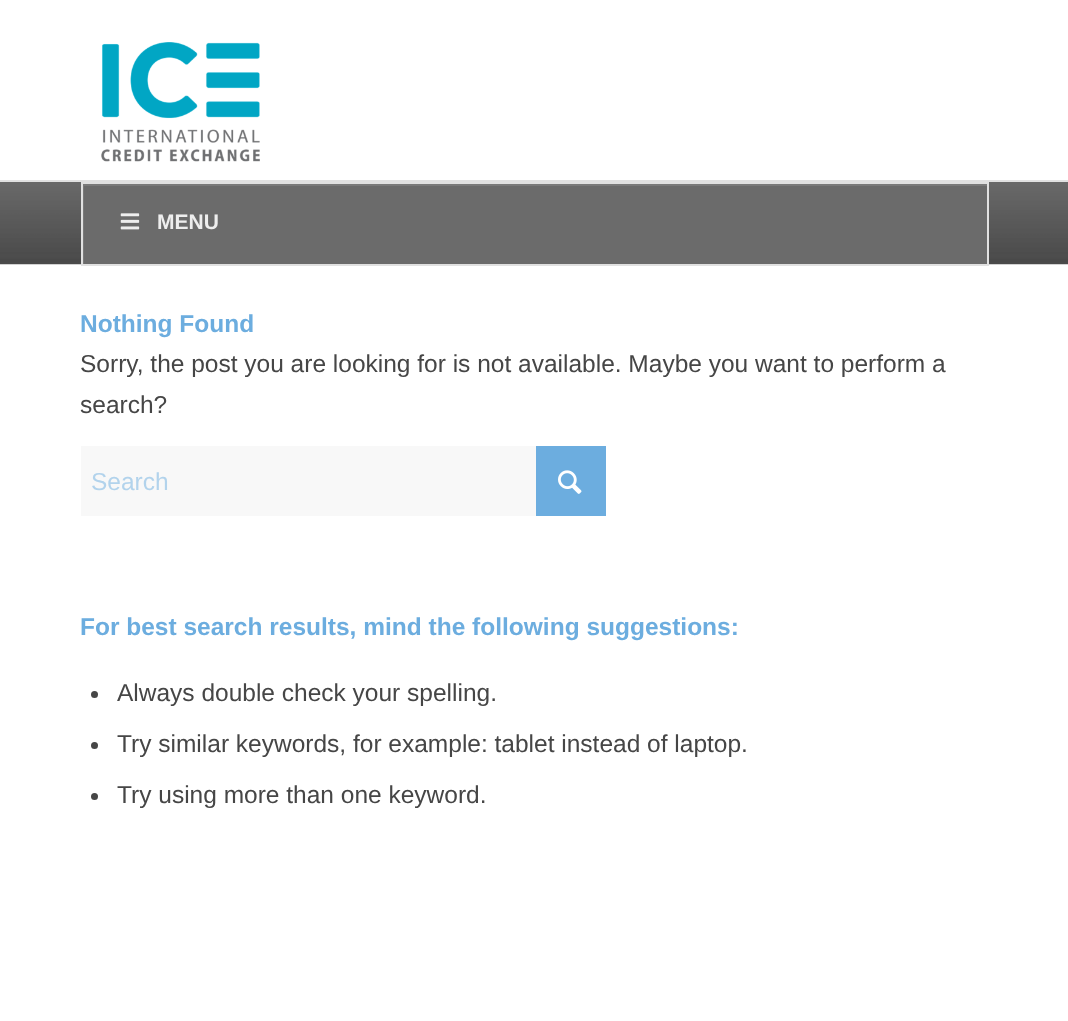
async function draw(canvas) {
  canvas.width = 1068
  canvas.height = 1021
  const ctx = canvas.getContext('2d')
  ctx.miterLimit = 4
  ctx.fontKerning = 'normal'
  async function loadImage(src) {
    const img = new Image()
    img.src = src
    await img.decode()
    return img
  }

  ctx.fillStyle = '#fff'
  ctx.fillRect(0, 0, 1068, 1021)
  ctx.drawImage(await loadImage('image0.png'), 101, 42, 159, 120)
  ctx.drawImage(await loadImage('image1.png'), 0, 182, 1068, 83)
  ctx.fillStyle = '#e1e1e1'
  ctx.fillRect(0, 180, 1068, 2)
  ctx.fillStyle = '#6b6b6b'
  ctx.fillRect(84, 186, 903, 78)
  ctx.save()
  ctx.beginPath()
  ctx.rect(82, 184, 905, 80)
  ctx.clip()
  ctx.fillStyle = '#7a7a7a'
  ctx.beginPath()
  ctx.moveTo(-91, 10)
  ctx.lineTo(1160, 10)
  ctx.lineTo(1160, 438)
  ctx.lineTo(-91, 438)
  ctx.closePath()
  ctx.moveTo(84, 186)
  ctx.lineTo(989, 186)
  ctx.lineTo(989, 266)
  ctx.lineTo(84, 266)
  ctx.closePath()
  ctx.fill('evenodd')
  ctx.restore()
  ctx.strokeStyle = '#e1e1e1'
  ctx.lineWidth = 2
  ctx.strokeRect(82, 183, 906, 82)
  ctx.drawImage(await loadImage('image2.png'), 120, 213, 20, 17)
  ctx.font = 'bold 21px Liberation Sans'
  ctx.fillStyle = '#eee'
  ctx.fillText('MENU', 157, 229)
  ctx.font = 'bold 24.5px Liberation Sans'
  ctx.fillStyle = '#6caddf'
  ctx.fillText('Nothing Found', 80, 332)
  ctx.font = '24.5px Liberation Sans'
  ctx.fillStyle = '#464646'
  ctx.fillText('Sorry, the post you are looking for is not available. Maybe you want to perform a', 80, 372)
  ctx.fillText('search?', 80, 413)
  ctx.fillStyle = '#6caddf'
  ctx.fillRect(536, 446, 70, 70)
  ctx.fillStyle = '#f8f8f8'
  ctx.fillRect(81, 446, 455, 70)
  ctx.fillStyle = '#b2d3ec'
  ctx.fillText('Search', 91, 490)
  ctx.drawImage(await loadImage('image3.png'), 558, 470, 24, 24)
  ctx.font = 'bold 24.5px Liberation Sans'
  ctx.fillStyle = '#6caddf'
  ctx.fillText('For best search results, mind the following suggestions:', 80, 635)
  ctx.fillStyle = '#464646'
  ctx.beginPath()
  ctx.arc(94.5, 694.5, 3.5, 0, 2 * Math.PI)
  ctx.fill()
  ctx.font = '24.5px Liberation Sans'
  ctx.fillText('Always double check your spelling.', 117, 701)
  ctx.beginPath()
  ctx.arc(94.5, 745.5, 3.5, 0, 2 * Math.PI)
  ctx.fill()
  ctx.fillText('Try similar keywords, for example: tablet instead of laptop.', 117, 752)
  ctx.beginPath()
  ctx.arc(94.5, 796.5, 3.5, 0, 2 * Math.PI)
  ctx.fill()
  ctx.fillText('Try using more than one keyword.', 117, 803)
}

draw(document.querySelector('canvas'))
